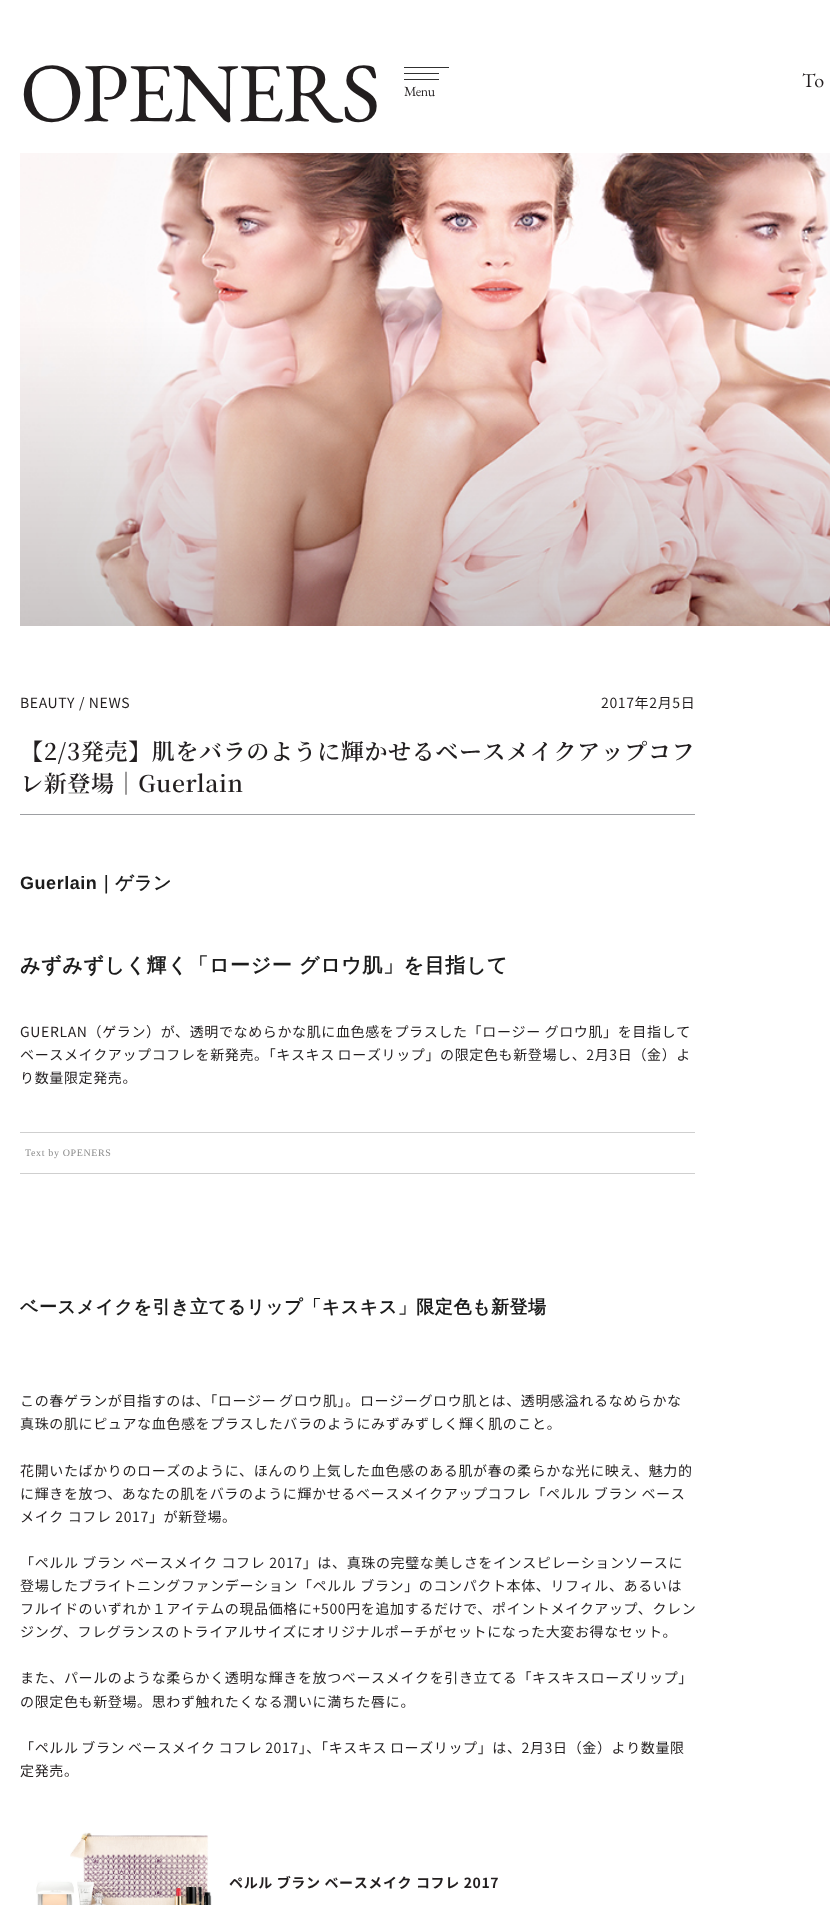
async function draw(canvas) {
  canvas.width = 830
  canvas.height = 1905
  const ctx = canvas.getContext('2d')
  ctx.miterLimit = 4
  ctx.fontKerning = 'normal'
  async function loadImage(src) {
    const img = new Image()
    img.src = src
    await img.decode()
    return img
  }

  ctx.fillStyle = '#fff'
  ctx.fillRect(0, 0, 830, 1905)
  ctx.letterSpacing = '-1.75px'
  ctx.font = '84px EB Garamond'
  ctx.fillStyle = '#221e1f'
  ctx.fillText('OPENERS', 20, 121)
  ctx.letterSpacing = '1px'
  ctx.font = '20px EB Garamond'
  ctx.fillText('To', 802, 87)
  ctx.fillStyle = '#303030'
  ctx.fillRect(404, 67, 45, 1)
  ctx.fillRect(404, 73, 35, 1)
  ctx.fillRect(404, 79, 35, 1)
  ctx.letterSpacing = '-0.5px'
  ctx.font = '14px EB Garamond'
  ctx.fillStyle = '#221e1f'
  ctx.fillText('Menu', 404, 96)
  ctx.drawImage(await loadImage('image0.png'), 20, 153, 810, 473)
  ctx.letterSpacing = '0.63px'
  ctx.font = '14px Noto Sans JP'
  ctx.fillText('BEAUTY / NEWS', 20, 708)
  ctx.fillText('2017年2月5日', 601, 708)
  ctx.fillStyle = '#9d9fa2'
  ctx.fillRect(20, 814, 675, 1)
  ctx.font = '600 23px Noto Serif JP'
  ctx.fillStyle = '#221e1f'
  ctx.fillText('【2/3発売】肌をバラのように輝かせるベースメイクアップコフ', 20, 760)
  ctx.fillText('レ新登場｜Guerlain', 20, 792)
  ctx.letterSpacing = '0.55px'
  ctx.font = 'bold 18px Liberation Sans'
  ctx.fillStyle = '#1c1c1c'
  ctx.fillText('Guerlain', 20, 889)
  ctx.font = 'bold 18px WenQuanYi Zen Hei'
  ctx.fillText('｜ゲラン', 97, 889)
  ctx.letterSpacing = '0.63px'
  ctx.font = 'bold 20px WenQuanYi Zen Hei'
  ctx.fillText('みずみずしく輝く「ロージー グロウ肌」を目指して', 20, 972)
  ctx.font = '14px Noto Sans JP'
  ctx.fillStyle = '#221e1f'
  ctx.fillText('GUERLAN（ゲラン）が、透明でなめらかな肌に血色感をプラスした「ロージー グロウ肌」を目指して', 20, 1037)
  ctx.wordSpacing = '-1px'
  ctx.fillText('ベースメイクアップコフレを新発売。「キスキス ローズリップ」の限定色も新登場し、2月3日（金）よ', 20, 1060)
  ctx.wordSpacing = '0px'
  ctx.fillText('り数量限定発売。', 20, 1083)
  ctx.fillStyle = '#cfcfcf'
  ctx.fillRect(20, 1132, 675, 1)
  ctx.fillRect(20, 1173, 675, 1)
  ctx.font = '10px Liberation Serif'
  ctx.fillStyle = '#8b8b8b'
  ctx.fillText('Text by OPENERS', 25, 1156)
  ctx.letterSpacing = '0.55px'
  ctx.font = 'bold 18px WenQuanYi Zen Hei'
  ctx.fillStyle = '#1c1c1c'
  ctx.fillText('ベースメイクを引き立てるリップ「キスキス」限定色も新登場', 20, 1313)
  ctx.letterSpacing = '0.63px'
  ctx.wordSpacing = '-1px'
  ctx.font = '14px Noto Sans JP'
  ctx.fillStyle = '#221e1f'
  ctx.fillText('この春ゲランが目指すのは、「ロージー グロウ肌」。ロージーグロウ肌とは、透明感溢れるなめらかな', 20, 1406)
  ctx.wordSpacing = '0px'
  ctx.fillText('真珠の肌にピュアな血色感をプラスしたバラのようにみずみずしく輝く肌のこと。', 20, 1429)
  ctx.fillText('花開いたばかりのローズのように、ほんのり上気した血色感のある肌が春の柔らかな光に映え、魅力的', 20, 1476)
  ctx.fillText('に輝きを放つ、あなたの肌をバラのように輝かせるベースメイクアップコフレ「ペルル ブラン ベース', 20, 1499)
  ctx.fillText('メイク コフレ 2017」が新登場。', 20, 1522)
  ctx.fillText('「ペルル ブラン ベースメイク コフレ 2017」は、真珠の完璧な美しさをインスピレーションソースに', 20, 1568)
  ctx.fillText('登場したブライトニングファンデーション「ペルル ブラン」のコンパクト本体、リフィル、あるいは', 20, 1591)
  ctx.fillText('フルイドのいずれか１アイテムの現品価格に+500円を追加するだけで、ポイントメイクアップ、クレン', 20, 1614)
  ctx.fillText('ジング、フレグランスのトライアルサイズにオリジナルポーチがセットになった大変お得なセット。', 20, 1637)
  ctx.fillText('また、パールのような柔らかく透明な輝きを放つベースメイクを引き立てる「キスキスローズリップ」', 20, 1683)
  ctx.fillText('の限定色も新登場。思わず触れたくなる潤いに満ちた唇に。', 20, 1707)
  ctx.wordSpacing = '-1px'
  ctx.fillText('「ペルル ブラン ベースメイク コフレ 2017」、「キスキス ローズリップ」は、2月3日（金）より数量限', 20, 1753)
  ctx.wordSpacing = '0px'
  ctx.fillText('定発売。', 20, 1776)
  ctx.drawImage(await loadImage('image1.png'), 36, 1832, 176, 73)
  ctx.font = 'bold 14px Noto Sans JP'
  ctx.fillText('ペルル ブラン ベースメイク コフレ 2017', 229, 1888)
}

draw(document.querySelector('canvas'))
